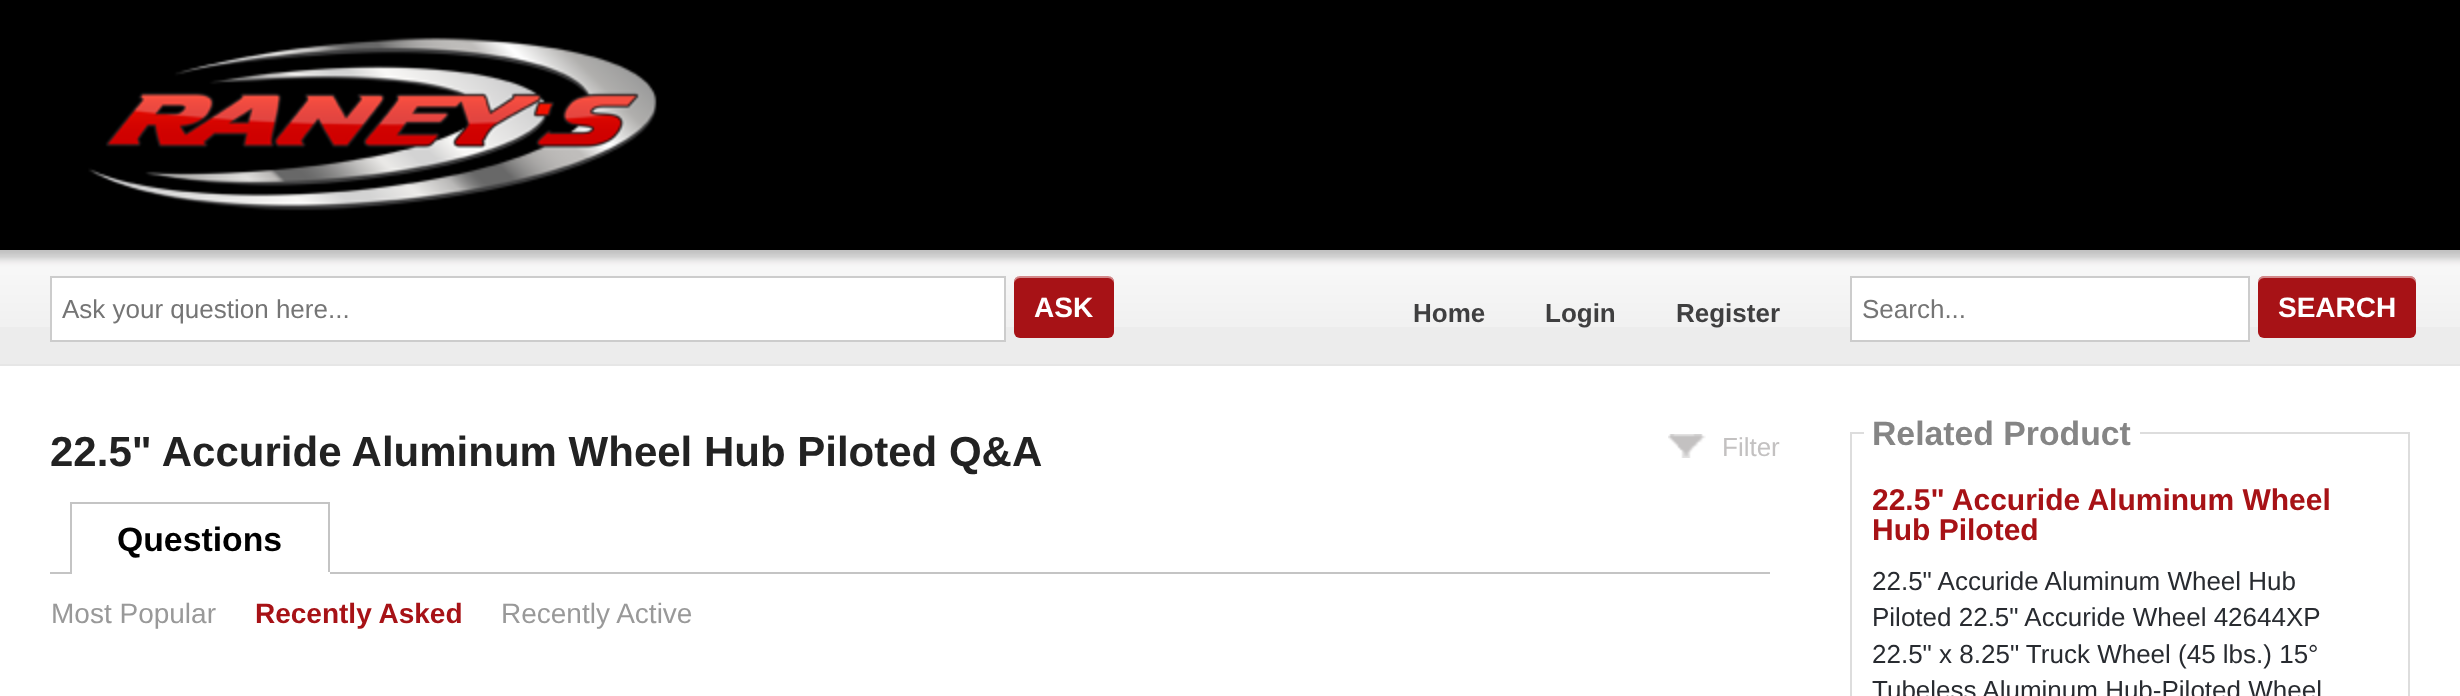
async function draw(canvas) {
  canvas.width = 2460
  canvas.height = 696
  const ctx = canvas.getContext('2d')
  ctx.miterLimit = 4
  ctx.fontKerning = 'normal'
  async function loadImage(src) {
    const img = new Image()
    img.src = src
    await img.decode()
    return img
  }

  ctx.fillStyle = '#fff'
  ctx.fillRect(0, 0, 2460, 696)
  ctx.fillStyle = '#000'
  ctx.fillRect(0, 0, 2460, 250)
  ctx.drawImage(await loadImage('image0.png'), 88, 37, 569, 174)
  ctx.fillStyle = '#ececec'
  ctx.fillRect(0, 327, 2460, 37)
  ctx.drawImage(await loadImage('image1.png'), 0, 250, 2460, 77)
  ctx.fillStyle = '#e6e6e6'
  ctx.fillRect(0, 364, 2460, 2)
  ctx.fillStyle = '#fff'
  ctx.beginPath()
  ctx.rect(51, 277, 954, 64)
  ctx.fill()
  ctx.strokeStyle = '#ccc'
  ctx.lineWidth = 2
  ctx.stroke()
  ctx.font = '26px Liberation Sans'
  ctx.fillStyle = '#757575'
  ctx.fillText('Ask your question here...', 62, 318)
  ctx.fillStyle = '#a71216'
  ctx.beginPath()
  ctx.roundRect(1014, 276, 100, 62, 6)
  ctx.fill()
  ctx.fillStyle = '#ffffff80'
  ctx.beginPath()
  ctx.moveTo(1020, 278)
  ctx.lineTo(1108, 278)
  ctx.bezierCurveTo(1111, 278, 1114, 281, 1114, 284)
  ctx.bezierCurveTo(1114, 272, 1102, 276, 1093, 276)
  ctx.lineTo(1035, 276)
  ctx.bezierCurveTo(1026, 276, 1014, 272, 1014, 284)
  ctx.bezierCurveTo(1014, 281, 1017, 278, 1020, 278)
  ctx.closePath()
  ctx.fill()
  ctx.font = 'bold 28px Liberation Sans'
  ctx.fillStyle = '#fff'
  ctx.fillText('ASK', 1034, 317)
  ctx.font = 'bold 26px Liberation Sans'
  ctx.fillStyle = '#3f3f40'
  ctx.fillText('Home', 1413, 322)
  ctx.fillText('Login', 1545, 322)
  ctx.fillText('Register', 1676, 322)
  ctx.fillStyle = '#fff'
  ctx.beginPath()
  ctx.rect(1851, 277, 398, 64)
  ctx.fill()
  ctx.stroke()
  ctx.font = '26px Liberation Sans'
  ctx.fillStyle = '#757575'
  ctx.fillText('Search...', 1862, 318)
  ctx.fillStyle = '#a71216'
  ctx.beginPath()
  ctx.roundRect(2258, 276, 158, 62, 6)
  ctx.fill()
  ctx.fillStyle = '#ffffff80'
  ctx.beginPath()
  ctx.moveTo(2264, 278)
  ctx.lineTo(2410, 278)
  ctx.bezierCurveTo(2413, 278, 2416, 281, 2416, 284)
  ctx.lineTo(2416, 282)
  ctx.bezierCurveTo(2416, 279, 2413, 276, 2410, 276)
  ctx.lineTo(2264, 276)
  ctx.bezierCurveTo(2261, 276, 2258, 279, 2258, 282)
  ctx.lineTo(2258, 284)
  ctx.bezierCurveTo(2258, 281, 2261, 278, 2264, 278)
  ctx.closePath()
  ctx.fill()
  ctx.font = 'bold 28px Liberation Sans'
  ctx.fillStyle = '#fff'
  ctx.fillText('SEARCH', 2278, 317)
  ctx.font = 'bold 42px Liberation Sans'
  ctx.fillStyle = '#222'
  ctx.fillText('22.5" Accuride Aluminum Wheel Hub Piloted Q&A', 50, 466)
  ctx.drawImage(await loadImage('image2.png'), 1668, 434, 38, 24)
  ctx.font = '26px Liberation Sans'
  ctx.fillStyle = '#c3c1c1'
  ctx.fillText('Filter', 1722, 456)
  ctx.fillStyle = '#c4c4c4'
  ctx.fillRect(70, 502, 260, 2)
  ctx.fillRect(328, 502, 2, 72)
  ctx.fillStyle = '#fff'
  ctx.fillRect(328, 572, 2, 2)
  ctx.fillStyle = '#c4c4c4'
  ctx.fillRect(70, 502, 2, 72)
  ctx.font = 'bold 33.75px Liberation Sans'
  ctx.fillStyle = '#000'
  ctx.fillText('Questions', 117, 551)
  ctx.fillStyle = '#c4c4c4'
  ctx.fillRect(50, 572, 20, 2)
  ctx.fillRect(330, 572, 1440, 2)
  ctx.font = '28px Liberation Sans'
  ctx.fillStyle = '#999'
  ctx.fillText('Most Popular', 51, 623)
  ctx.font = 'bold 28px Liberation Sans'
  ctx.fillStyle = '#a71216'
  ctx.fillText('Recently Asked', 255, 623)
  ctx.font = '28px Liberation Sans'
  ctx.fillStyle = '#999'
  ctx.fillText('Recently Active', 501, 623)
  ctx.strokeStyle = '#ddd'
  ctx.strokeRect(1851, 433, 558, 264)
  ctx.fillStyle = '#fff'
  ctx.fillRect(1864, 432, 276, 2)
  ctx.font = 'bold 33.75px Liberation Sans'
  ctx.fillStyle = '#858585'
  ctx.fillText('Related Product', 1872, 445)
  ctx.font = 'bold 30px Liberation Sans'
  ctx.fillStyle = '#a71216'
  ctx.fillText('22.5" Accuride Aluminum Wheel', 1872, 510)
  ctx.fillText('Hub Piloted', 1872, 540)
  ctx.font = '26px Liberation Sans'
  ctx.fillStyle = '#282b30'
  ctx.fillText('22.5" Accuride Aluminum Wheel Hub', 1872, 590)
  ctx.fillText('Piloted 22.5" Accuride Wheel 42644XP', 1872, 626)
  ctx.fillText('22.5" x 8.25" Truck Wheel (45 lbs.) 15°', 1872, 663)
  ctx.fillText('Tubeless Aluminum Hub-Piloted Wheel', 1872, 699)
}

draw(document.querySelector('canvas'))
